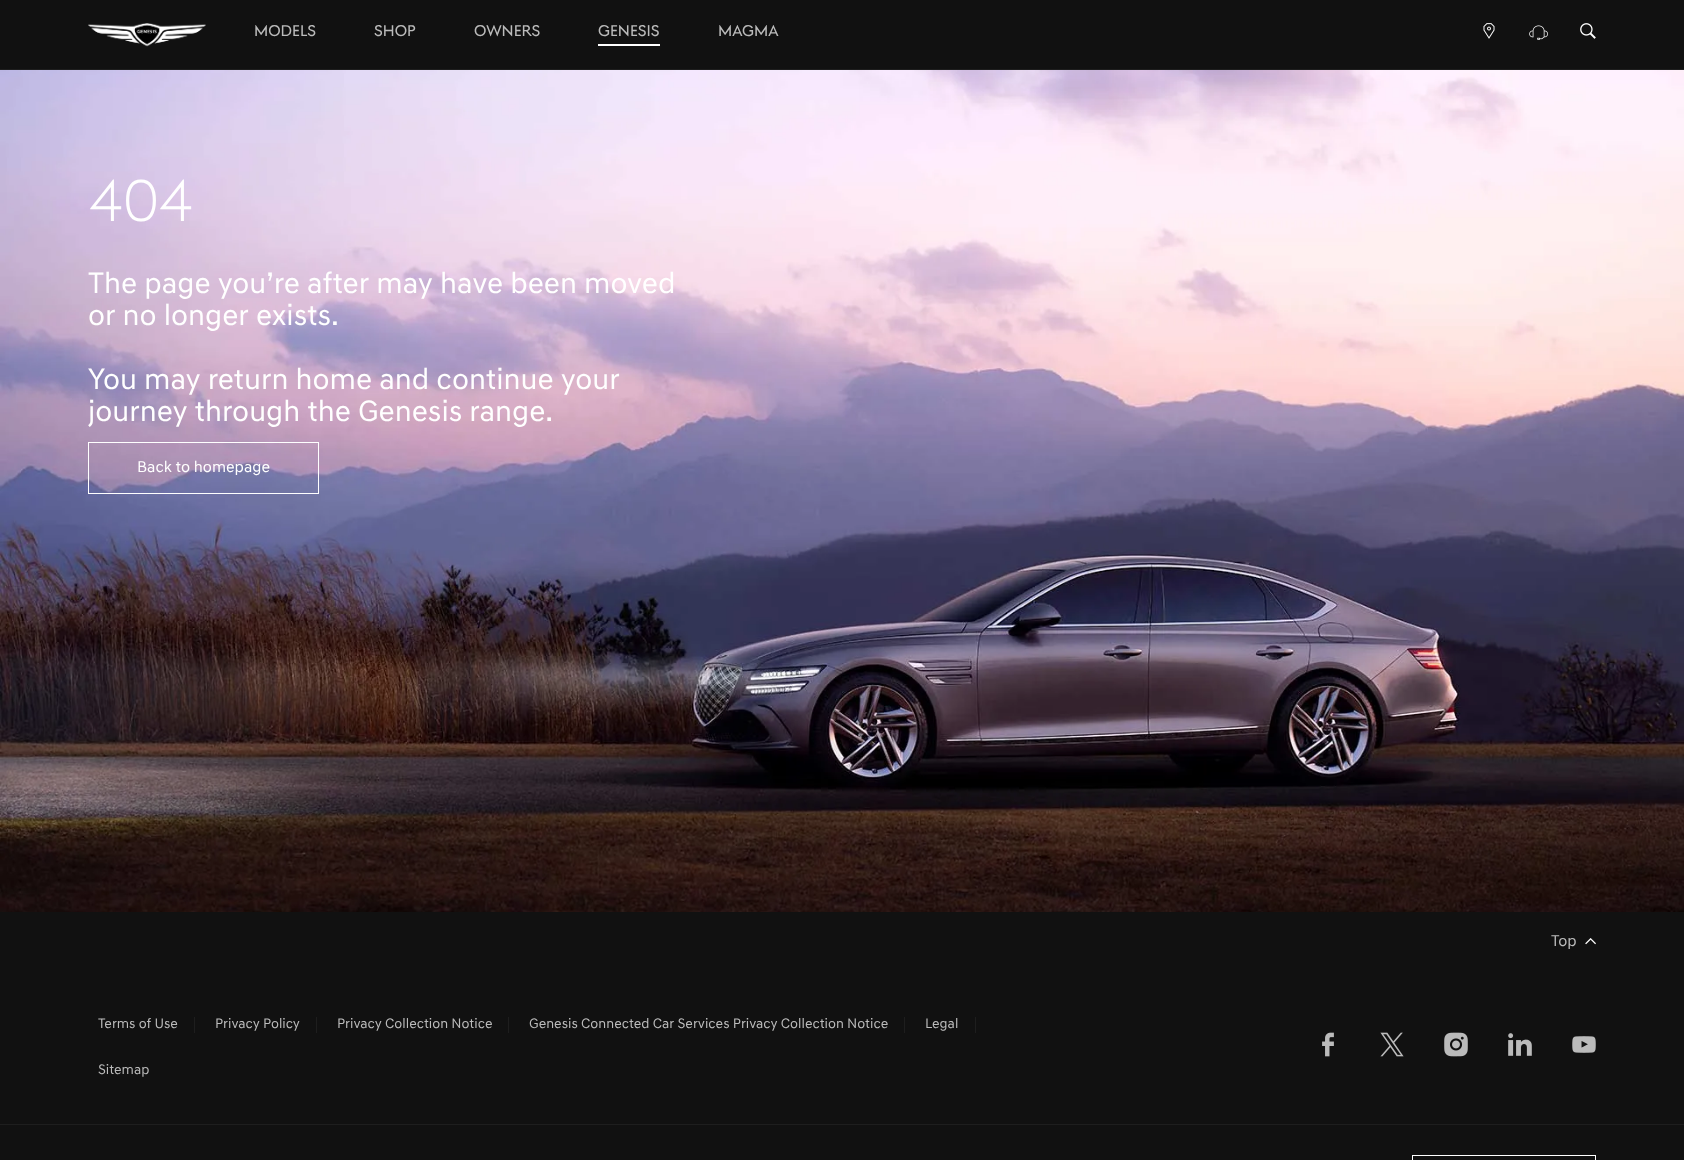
async function draw(canvas) {
  canvas.width = 1684
  canvas.height = 1160
  const ctx = canvas.getContext('2d')
  ctx.miterLimit = 4
  ctx.fontKerning = 'normal'
  async function loadImage(src) {
    const img = new Image()
    img.src = src
    await img.decode()
    return img
  }

  ctx.fillStyle = '#111'
  ctx.fillRect(0, 0, 1684, 1160)
  ctx.fillStyle = '#1e1e1e'
  ctx.fillRect(0, 69, 1684, 1)
  ctx.drawImage(await loadImage('image0.png'), 88, 23, 118, 24)
  ctx.font = '16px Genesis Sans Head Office'
  ctx.fillStyle = '#bbb'
  ctx.fillText('MODELS', 254, 36)
  ctx.fillText('SHOP', 374, 36)
  ctx.fillText('OWNERS', 474, 36)
  ctx.fillText('GENESIS', 598, 36)
  ctx.fillStyle = '#fff'
  ctx.fillRect(598, 44, 62, 2)
  ctx.fillStyle = '#bbb'
  ctx.fillText('MAGMA', 718, 36)
  ctx.drawImage(await loadImage('image1.png'), 1483, 23, 12, 16)
  ctx.drawImage(await loadImage('image2.png'), 1529, 25, 19, 15)
  ctx.drawImage(await loadImage('image3.png'), 1580, 23, 16, 16)
  ctx.drawImage(await loadImage('image4.png'), 0, 70, 1684, 842)
  ctx.letterSpacing = '-1px'
  ctx.font = '300 60px Genesis Sans Head Office'
  ctx.fillStyle = '#fff'
  ctx.fillText('404', 88, 221)
  ctx.letterSpacing = '0px'
  ctx.font = '30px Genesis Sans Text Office'
  ctx.fillText('The page you’re after may have been moved', 88, 293)
  ctx.fillText('or no longer exists.', 88, 325)
  ctx.fillText('You may return home and continue your', 88, 389)
  ctx.fillText('journey through the Genesis range.', 88, 421)
  ctx.strokeStyle = '#fff'
  ctx.strokeRect(88.5, 442.5, 230, 51)
  ctx.font = '16px Genesis Sans Text Office'
  ctx.fillText('Back to homepage', 137, 472)
  ctx.fillStyle = '#bbb'
  ctx.fillText('Top', 1551, 946)
  ctx.drawImage(await loadImage('image5.png'), 1585, 938, 11, 7)
  ctx.font = '14px Genesis Sans Text Office'
  ctx.fillText('Terms of Use', 98, 1028)
  ctx.fillStyle = '#1e1e1e'
  ctx.fillRect(194, 1017, 1, 16)
  ctx.fillStyle = '#bbb'
  ctx.fillText('Privacy Policy', 215, 1028)
  ctx.fillStyle = '#1e1e1e'
  ctx.fillRect(316, 1017, 1, 16)
  ctx.fillStyle = '#bbb'
  ctx.fillText('Privacy Collection Notice', 337, 1028)
  ctx.fillStyle = '#1e1e1e'
  ctx.fillRect(508, 1017, 1, 16)
  ctx.fillStyle = '#bbb'
  ctx.fillText('Genesis Connected Car Services Privacy Collection Notice', 529, 1028)
  ctx.fillStyle = '#1e1e1e'
  ctx.fillRect(904, 1017, 1, 16)
  ctx.fillStyle = '#bbb'
  ctx.fillText('Legal', 925, 1028)
  ctx.fillStyle = '#1e1e1e'
  ctx.fillRect(975, 1017, 1, 16)
  ctx.fillStyle = '#bbb'
  ctx.fillText('Sitemap', 98, 1074)
  ctx.drawImage(await loadImage('image6.png'), 1322, 1032, 12, 25)
  ctx.drawImage(await loadImage('image7.png'), 1380, 1032, 24, 25)
  ctx.drawImage(await loadImage('image8.png'), 1444, 1032, 24, 25)
  ctx.drawImage(await loadImage('image9.png'), 1508, 1033, 24, 23)
  ctx.drawImage(await loadImage('image10.png'), 1572, 1036, 24, 17)
  ctx.fillStyle = '#1e1e1e'
  ctx.fillRect(0, 1124, 1684, 1)
  ctx.strokeRect(1412.5, 1155.5, 183, 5)
}

draw(document.querySelector('canvas'))
